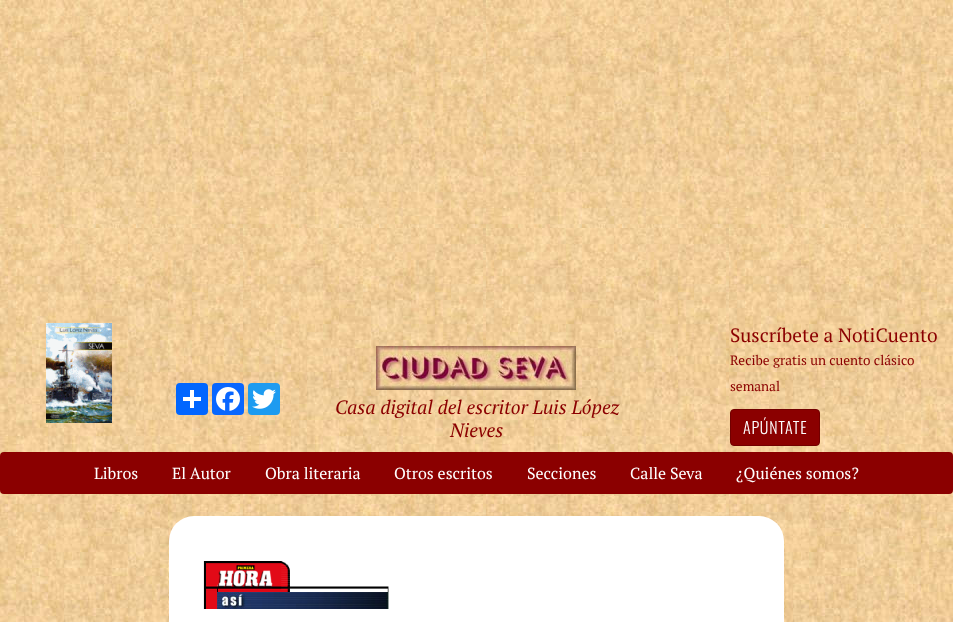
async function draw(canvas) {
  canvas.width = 953
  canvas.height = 622
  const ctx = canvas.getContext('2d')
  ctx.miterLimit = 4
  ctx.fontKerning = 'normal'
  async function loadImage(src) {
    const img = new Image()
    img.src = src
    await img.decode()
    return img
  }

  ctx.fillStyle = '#fff'
  ctx.fillRect(0, 0, 953, 622)
  ctx.drawImage(await loadImage('image0.png'), 0, 0, 953, 622)
  ctx.drawImage(await loadImage('image1.png'), 46, 323, 66, 100)
  ctx.fillStyle = '#0166ff'
  ctx.beginPath()
  ctx.roundRect(176, 383, 32, 32, 4)
  ctx.fill()
  ctx.fillStyle = '#fff'
  ctx.fillRect(190, 390, 4, 18)
  ctx.fillRect(183, 397, 18, 4)
  ctx.fillStyle = '#0866ff'
  ctx.beginPath()
  ctx.roundRect(212, 383, 32, 32, 4)
  ctx.fill()
  ctx.drawImage(await loadImage('image2.png'), 216, 387, 24, 24)
  ctx.fillStyle = '#1d9bf0'
  ctx.beginPath()
  ctx.roundRect(248, 383, 32, 32, 4)
  ctx.fill()
  ctx.drawImage(await loadImage('image3.png'), 252, 389, 24, 20)
  ctx.drawImage(await loadImage('image4.png'), 376, 346, 200, 44)
  ctx.font = 'italic 19.25px PT Serif'
  ctx.fillStyle = '#8b0000'
  ctx.fillText('Casa digital del escritor Luis López', 335, 414)
  ctx.fillText('Nieves', 450, 437)
  ctx.font = '19.25px PT Serif'
  ctx.fillText('Suscríbete a NotiCuento', 730, 342)
  ctx.font = '13.5px PT Serif'
  ctx.fillText('Recibe gratis un cuento clásico', 730, 365)
  ctx.fillText('semanal', 730, 391)
  ctx.beginPath()
  ctx.roundRect(730.5, 409.5, 89, 36, 3.5)
  ctx.fill()
  ctx.strokeStyle = '#720000'
  ctx.stroke()
  ctx.letterSpacing = '0.75px'
  ctx.font = '300 16px Oswald'
  ctx.fillStyle = '#fff'
  ctx.fillText('APÚNTATE', 743, 434)
  ctx.fillStyle = '#8b0000'
  ctx.beginPath()
  ctx.roundRect(0, 452, 953, 42, 4)
  ctx.fill()
  ctx.letterSpacing = '0px'
  ctx.font = '16px PT Serif'
  ctx.fillStyle = '#fff'
  ctx.fillText('Libros', 94, 479)
  ctx.fillText('El Autor', 172, 479)
  ctx.fillText('Obra literaria', 265, 479)
  ctx.fillText('Otros escritos', 394, 479)
  ctx.fillText('Secciones', 527, 479)
  ctx.fillText('Calle Seva', 630, 479)
  ctx.fillText('¿Quiénes somos?', 736, 479)
  ctx.beginPath()
  ctx.roundRect(169, 516, 615, 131, 25)
  ctx.fill()
  ctx.drawImage(await loadImage('image5.png'), 203, 561, 186, 48)
}

draw(document.querySelector('canvas'))
